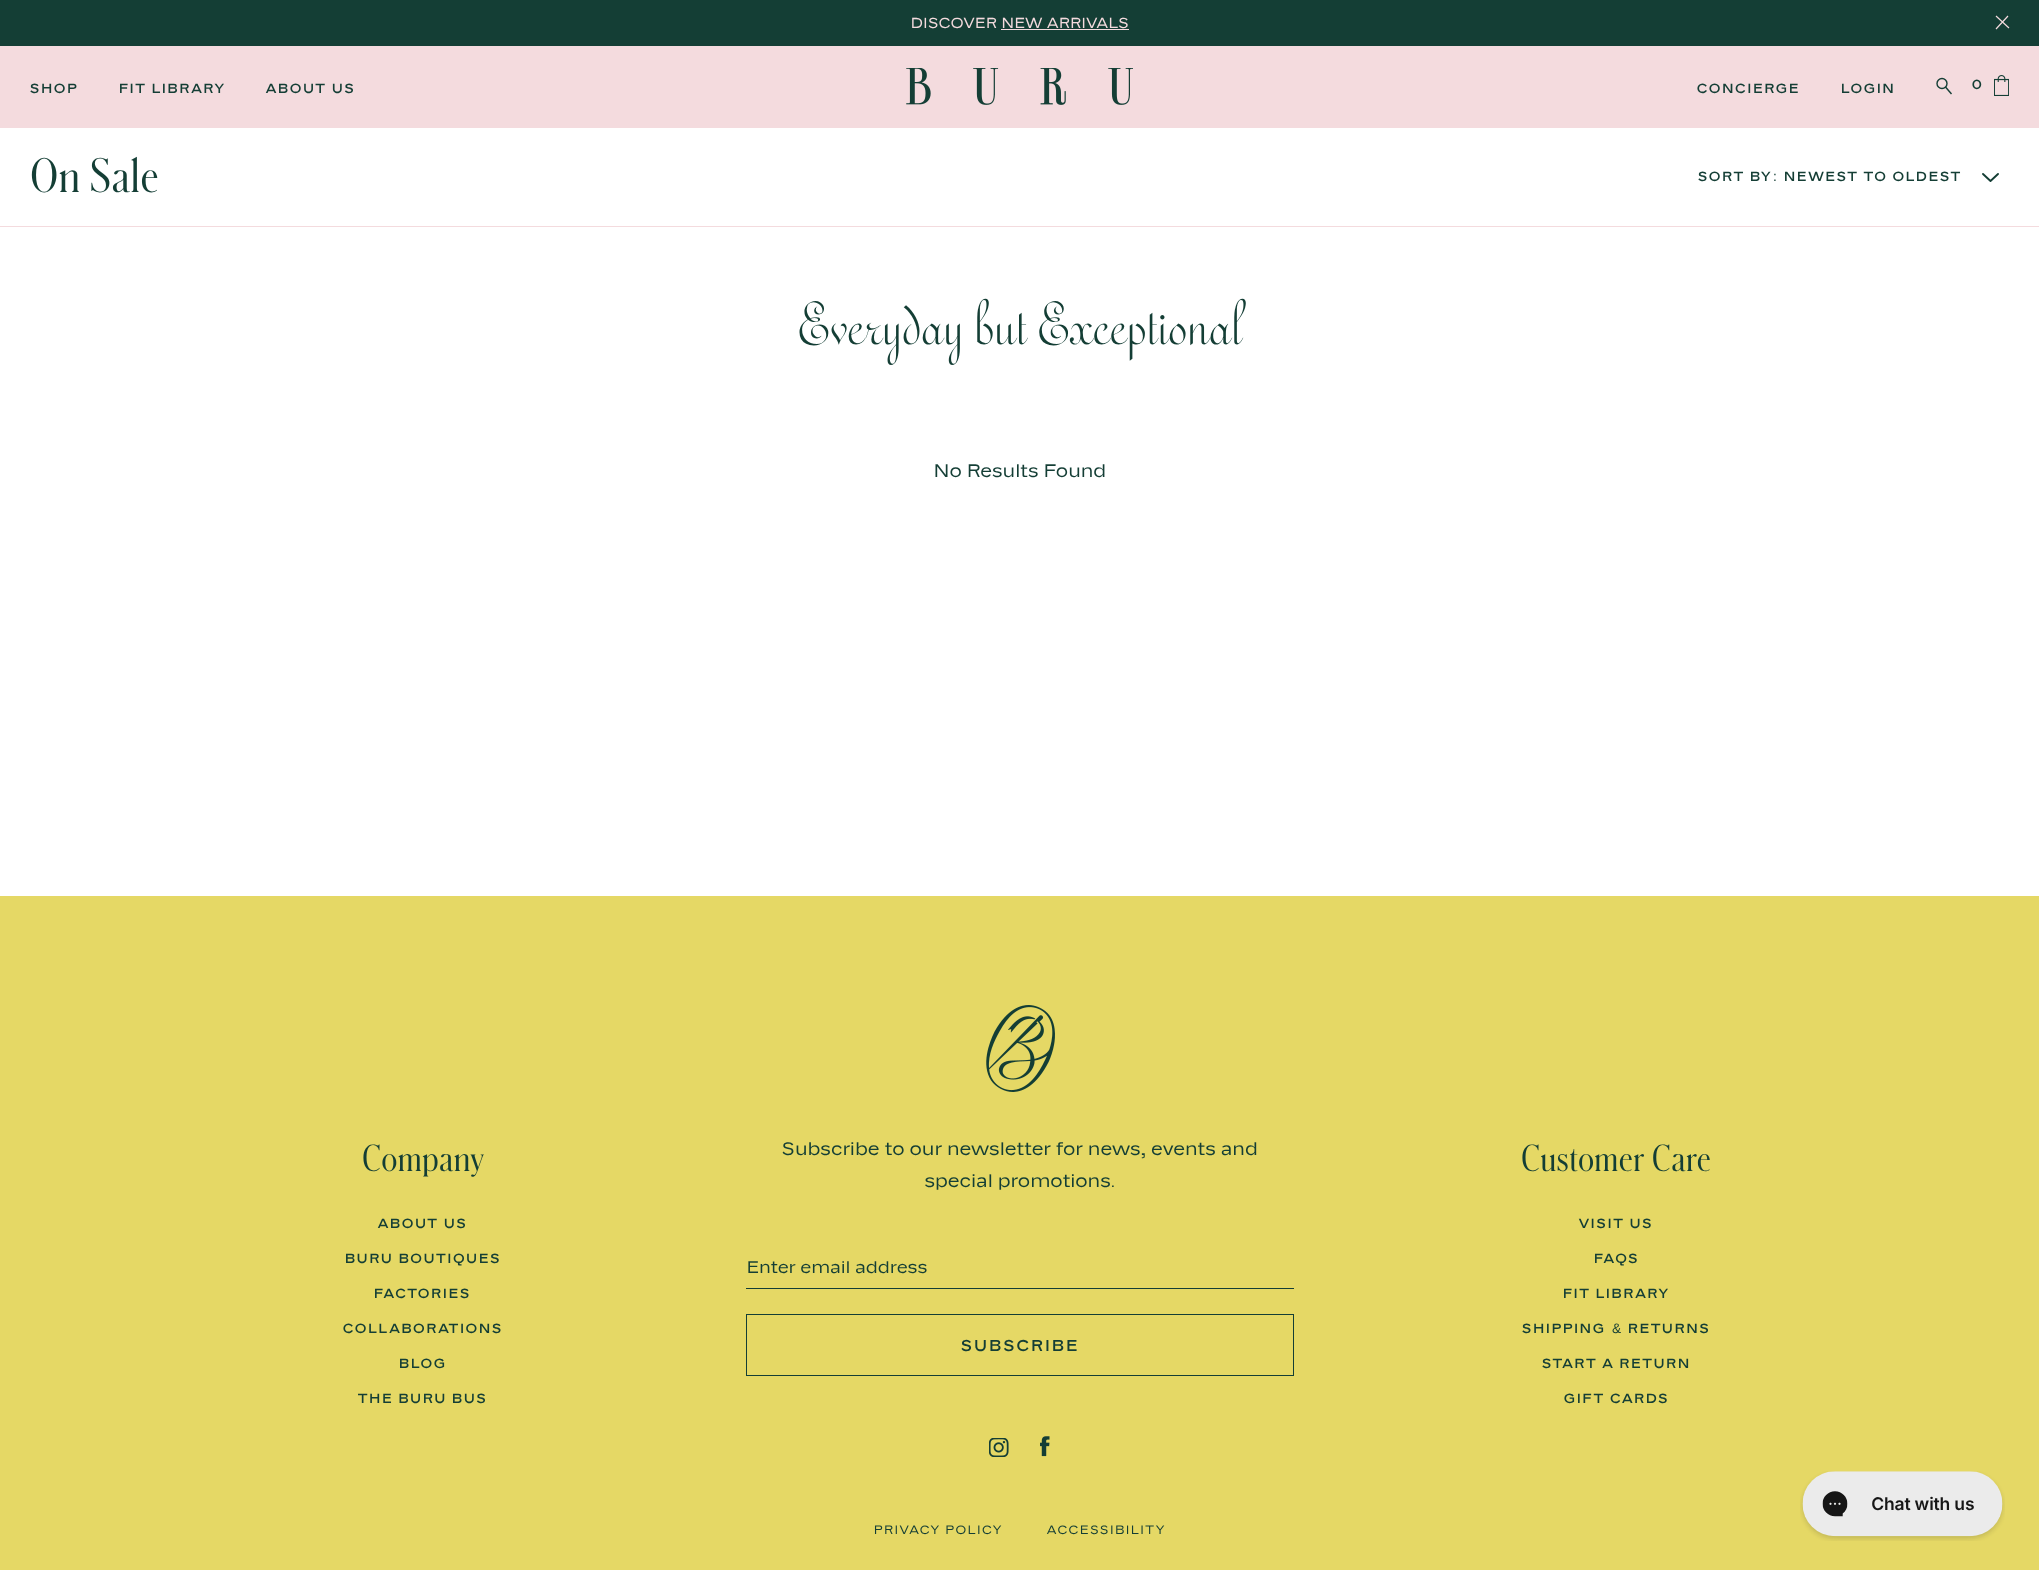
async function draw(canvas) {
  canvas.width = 2039
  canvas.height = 1570
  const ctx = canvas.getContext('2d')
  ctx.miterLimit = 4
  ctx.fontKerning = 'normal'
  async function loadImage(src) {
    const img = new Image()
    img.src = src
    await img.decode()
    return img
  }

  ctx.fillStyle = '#fff'
  ctx.fillRect(0, 0, 2039, 1570)
  ctx.fillStyle = '#f4dbde'
  ctx.fillRect(0, 46, 2039, 82)
  ctx.fillStyle = '#143e35'
  ctx.fillRect(0, 0, 2039, 46)
  ctx.letterSpacing = '0.95px'
  ctx.font = '15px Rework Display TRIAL'
  ctx.fillStyle = '#f4dbde'
  ctx.fillText('DISCOVER NEW ARRIVALS', 911, 28)
  ctx.fillRect(1001, 29, 128, 1)
  ctx.beginPath()
  ctx.moveTo(1996, 16)
  ctx.lineTo(2009, 28)
  ctx.moveTo(2008, 16)
  ctx.lineTo(1996, 29)
  ctx.strokeStyle = '#f4dbde'
  ctx.lineWidth = 1.2
  ctx.stroke()
  ctx.letterSpacing = '2px'
  ctx.font = '600 13.75px Rework Display TRIAL'
  ctx.fillStyle = '#143e35'
  ctx.fillText('SHOP', 30, 93)
  ctx.fillText('FIT LIBRARY', 119, 93)
  ctx.fillText('ABOUT US', 266, 93)
  ctx.drawImage(await loadImage('image0.png'), 906, 68, 227, 37)
  ctx.fillText('CONCIERGE', 1697, 93)
  ctx.fillText('LOGIN', 1841, 93)
  ctx.beginPath()
  ctx.arc(1942, 83.5, 5, 0, 2 * Math.PI)
  ctx.strokeStyle = '#143e35'
  ctx.lineWidth = 1.4
  ctx.stroke()
  ctx.beginPath()
  ctx.moveTo(1945.5, 87)
  ctx.lineTo(1951.5, 94)
  ctx.stroke()
  ctx.fillText('0', 1972, 89)
  ctx.drawImage(await loadImage('image1.png'), 1994, 75, 15, 21)
  ctx.fillStyle = '#f4dbde'
  ctx.fillRect(0, 226, 2039, 1)
  ctx.letterSpacing = '0.5px'
  ctx.font = '300 45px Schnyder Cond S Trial'
  ctx.fillStyle = '#143e35'
  ctx.fillText('On Sale', 30, 192)
  ctx.letterSpacing = '2px'
  ctx.font = '600 13.75px Rework Display TRIAL'
  ctx.fillText('SORT BY', 1698, 181)
  ctx.font = '13.75px Liberation Sans'
  ctx.fillText(':', 1773, 181)
  ctx.font = '600 13.75px Rework Display TRIAL'
  ctx.fillText('NEWEST TO OLDEST', 1784, 181)
  ctx.beginPath()
  ctx.moveTo(1983, 174)
  ctx.lineTo(1990.5, 181)
  ctx.lineTo(1998, 174)
  ctx.lineWidth = 1.9
  ctx.lineCap = 'round'
  ctx.lineJoin = 'round'
  ctx.stroke()
  ctx.letterSpacing = '0.6px'
  ctx.font = '300 60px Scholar'
  ctx.fillText('Everyday but Exceptional', 798, 344)
  ctx.letterSpacing = '0.95px'
  ctx.font = '18.75px Rework Display TRIAL'
  ctx.fillText('No Results Found', 934, 477)
  ctx.fillStyle = '#e5d865'
  ctx.fillRect(0, 896, 2039, 674)
  ctx.drawImage(await loadImage('image2.png'), 986, 1005, 69, 87)
  ctx.letterSpacing = '0.3px'
  ctx.font = '300 35px Schnyder Cond S Trial'
  ctx.fillStyle = '#143e35'
  ctx.fillText('Company', 362, 1171)
  ctx.letterSpacing = '2px'
  ctx.font = '600 13.75px Rework Display TRIAL'
  ctx.fillText('ABOUT US', 378, 1228)
  ctx.fillText('BURU BOUTIQUES', 345, 1263)
  ctx.fillText('FACTORIES', 374, 1298)
  ctx.fillText('COLLABORATIONS', 343, 1333)
  ctx.fillText('BLOG', 399, 1368)
  ctx.fillText('THE BURU BUS', 358, 1403)
  ctx.letterSpacing = '0.95px'
  ctx.font = '18.75px Rework Display TRIAL'
  ctx.fillText('Subscribe to our newsletter for news, events and', 782, 1155)
  ctx.fillText('special promotions.', 925, 1187)
  ctx.fillRect(746, 1288, 548, 1)
  ctx.letterSpacing = '0.9px'
  ctx.font = '17.5px Rework Display TRIAL'
  ctx.fillText('Enter email address', 747, 1273)
  ctx.lineWidth = 1
  ctx.lineJoin = 'miter'
  ctx.strokeRect(746.5, 1314.5, 547, 61)
  ctx.letterSpacing = '2.5px'
  ctx.font = '600 16.25px Rework Display TRIAL'
  ctx.fillText('SUBSCRIBE', 961, 1351)
  ctx.drawImage(await loadImage('image3.png'), 989, 1438, 20, 19)
  ctx.drawImage(await loadImage('image4.png'), 1040, 1436, 10, 21)
  ctx.letterSpacing = '0.3px'
  ctx.font = '300 35px Schnyder Cond S Trial'
  ctx.fillText('Customer Care', 1521, 1171)
  ctx.letterSpacing = '2px'
  ctx.font = '600 13.75px Rework Display TRIAL'
  ctx.fillText('VISIT US', 1579, 1228)
  ctx.fillText('FAQS', 1594, 1263)
  ctx.fillText('FIT LIBRARY', 1563, 1298)
  ctx.fillText('SHIPPING', 1522, 1333)
  ctx.font = '13.75px Liberation Sans'
  ctx.fillText('&', 1612, 1333)
  ctx.font = '600 13.75px Rework Display TRIAL'
  ctx.fillText('RETURNS', 1628, 1333)
  ctx.fillText('START A RETURN', 1542, 1368)
  ctx.fillText('GIFT CARDS', 1564, 1403)
  ctx.letterSpacing = '1.9px'
  ctx.font = '12.5px Rework Display TRIAL'
  ctx.fillText('PRIVACY POLICY', 874, 1534)
  ctx.fillText('ACCESSIBILITY', 1047, 1534)
  ctx.drawImage(await loadImage('image5.png'), 1800, 1471, 205, 70)
}

draw(document.querySelector('canvas'))
